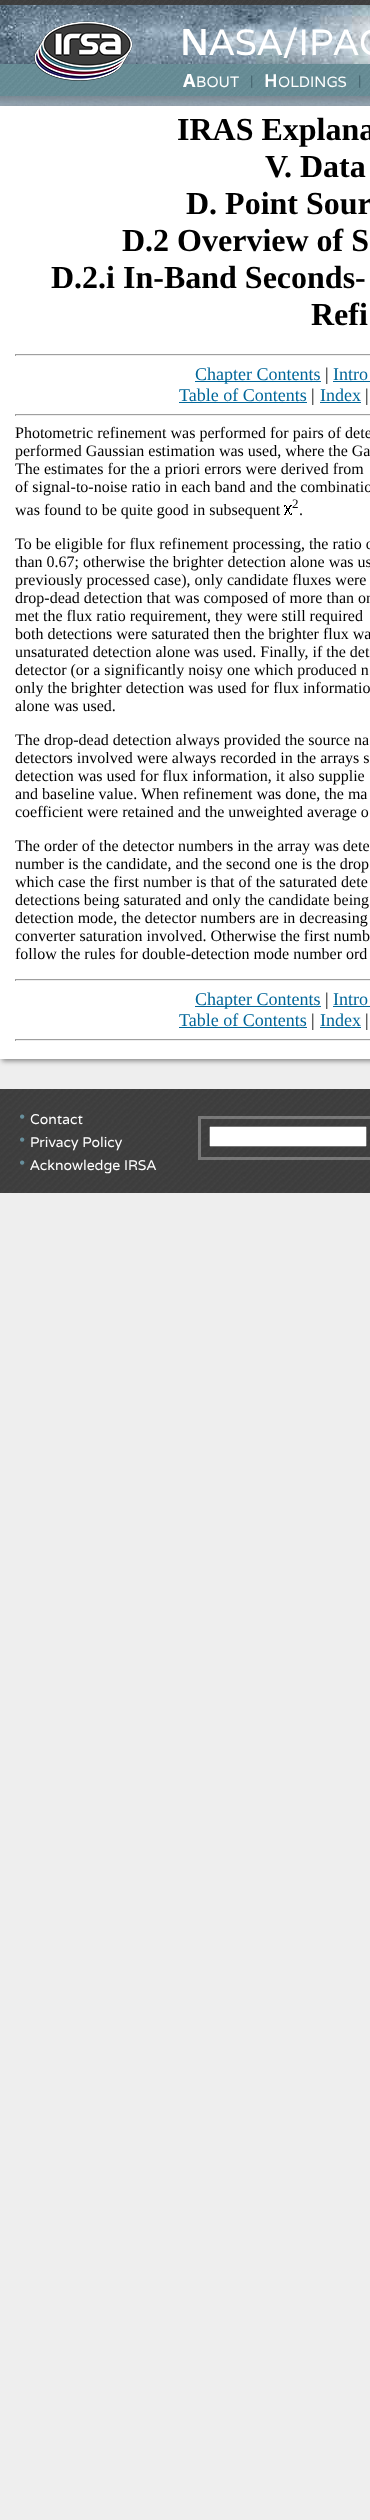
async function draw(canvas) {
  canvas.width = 370
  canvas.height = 2520
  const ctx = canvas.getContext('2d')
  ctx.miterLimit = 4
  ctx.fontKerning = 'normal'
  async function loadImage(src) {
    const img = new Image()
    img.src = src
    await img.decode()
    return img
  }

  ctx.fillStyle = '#eee'
  ctx.fillRect(0, 0, 370, 2520)
  ctx.drawImage(await loadImage('image0.png'), 0, 96, 370, 10)
  ctx.drawImage(await loadImage('image1.png'), 0, 5, 370, 59)
  ctx.drawImage(await loadImage('image2.png'), 0, 0, 370, 5)
  ctx.drawImage(await loadImage('image4.png'), 0, 64, 370, 32)
  ctx.drawImage(await loadImage('image3.png'), 34, 21, 99, 60)
  ctx.font = '600 36.5px Noto Sans'
  ctx.fillStyle = '#fff'
  ctx.fillText('N', 180, 55)
  ctx.font = '36.5px Varela'
  ctx.fillText('ASA/IPAC', 209, 55)
  ctx.font = 'bold 18px Noto Sans'
  ctx.fillText('A', 183, 87)
  ctx.font = '15px Varela'
  ctx.fillText('BOUT', 196, 87)
  ctx.font = '13px Liberation Sans'
  ctx.fillStyle = '#45646e'
  ctx.fillText('|', 250, 85)
  ctx.font = '600 18px Noto Sans'
  ctx.fillStyle = '#fff'
  ctx.fillText('H', 264, 87)
  ctx.font = '15px Varela'
  ctx.fillText('OLDINGS', 278, 87)
  ctx.font = '13px Liberation Sans'
  ctx.fillStyle = '#45646e'
  ctx.fillText('|', 358, 85)
  ctx.fillStyle = '#888'
  ctx.filter = 'blur(2.5px)'
  ctx.beginPath()
  ctx.rect(2, 108, 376, 953)
  ctx.fill()
  ctx.filter = 'none'
  ctx.fillStyle = '#fff'
  ctx.fillRect(0, 106, 370, 953)
  ctx.font = 'bold 32px Liberation Serif'
  ctx.fillStyle = '#000'
  ctx.fillText('IRAS Explana', 177, 140)
  ctx.fillText('V. Data', 265, 177)
  ctx.fillText('D. Point Sour', 186, 214)
  ctx.fillText('D.2 Overview of S', 122, 251)
  ctx.fillText('D.2.i In-Band Seconds-', 51, 288)
  ctx.fillText('Refi', 311, 325)
  ctx.fillStyle = '#9f9f9f'
  ctx.fillRect(15, 354, 355, 1)
  ctx.fillStyle = '#eee'
  ctx.fillRect(15, 355, 355, 1)
  ctx.fillStyle = '#9f9f9f'
  ctx.fillRect(15, 354, 1, 2)
  ctx.fillStyle = '#069'
  ctx.fillRect(195, 381, 126, 1)
  ctx.font = '18px Liberation Serif'
  ctx.fillText('Chapter Contents', 195, 380)
  ctx.fillStyle = '#000'
  ctx.fillText('|', 325, 380)
  ctx.fillStyle = '#069'
  ctx.fillText('Intro', 333, 380)
  ctx.fillRect(333, 381, 37, 1)
  ctx.fillText('Table of Contents', 179, 401)
  ctx.fillRect(179, 402, 128, 1)
  ctx.fillStyle = '#000'
  ctx.fillText('|', 311, 401)
  ctx.fillStyle = '#069'
  ctx.fillText('Index', 320, 401)
  ctx.fillRect(320, 402, 41, 1)
  ctx.fillStyle = '#000'
  ctx.fillText('|', 365, 401)
  ctx.fillStyle = '#9f9f9f'
  ctx.fillRect(15, 414, 355, 1)
  ctx.fillStyle = '#eee'
  ctx.fillRect(15, 415, 355, 1)
  ctx.fillStyle = '#9f9f9f'
  ctx.fillRect(15, 414, 1, 2)
  ctx.font = '16px Liberation Serif'
  ctx.fillStyle = '#000'
  ctx.fillText('Photometric refinement was performed for pairs of dete', 15, 438)
  ctx.fillText('performed Gaussian estimation was used, where the Ga', 15, 456)
  ctx.fillText('The estimates for the a priori errors were derived from', 15, 474)
  ctx.fillText('of signal-to-noise ratio in each band and the combinatio', 15, 492)
  ctx.fillText('was found to be quite good in subsequent', 15, 515)
  ctx.drawImage(await loadImage('image5.png'), 284, 505, 8, 10)
  ctx.font = '13px Liberation Serif'
  ctx.fillText('2', 292, 508)
  ctx.font = '16px Liberation Serif'
  ctx.fillText('.', 299, 515)
  ctx.fillText('To be eligible for flux refinement processing, the ratio o', 15, 549)
  ctx.fillText('than 0.67; otherwise the brighter detection alone was us', 15, 567)
  ctx.fillText('previously processed case), only candidate fluxes were', 15, 585)
  ctx.fillText('drop-dead detection that was composed of more than on', 15, 603)
  ctx.fillText('met the flux ratio requirement, they were still required', 15, 621)
  ctx.fillText('both detections were saturated then the brighter flux wa', 15, 639)
  ctx.fillText('unsaturated detection alone was used. Finally, if the det', 15, 657)
  ctx.fillText('detector (or a significantly noisy one which produced n', 15, 675)
  ctx.fillText('only the brighter detection was used for flux informatio', 15, 693)
  ctx.fillText('alone was used.', 15, 711)
  ctx.fillText('The drop-dead detection always provided the source na', 15, 745)
  ctx.fillText('detectors involved were always recorded in the arrays s', 15, 763)
  ctx.fillText('detection was used for flux information, it also supplie', 15, 781)
  ctx.fillText('and baseline value. When refinement was done, the ma', 15, 799)
  ctx.fillText('coefficient were retained and the unweighted average o', 15, 817)
  ctx.fillText('The order of the detector numbers in the array was dete', 15, 851)
  ctx.fillText('number is the candidate, and the second one is the drop', 15, 869)
  ctx.fillText('which case the first number is that of the saturated dete', 15, 887)
  ctx.fillText('detections being saturated and only the candidate being', 15, 905)
  ctx.fillText('detection mode, the detector numbers are in decreasing', 15, 923)
  ctx.fillText('converter saturation involved. Otherwise the first numb', 15, 941)
  ctx.fillText('follow the rules for double-detection mode number ord', 15, 959)
  ctx.fillStyle = '#9f9f9f'
  ctx.fillRect(15, 979, 355, 1)
  ctx.fillStyle = '#eee'
  ctx.fillRect(15, 980, 355, 1)
  ctx.fillStyle = '#9f9f9f'
  ctx.fillRect(15, 979, 1, 2)
  ctx.fillStyle = '#069'
  ctx.fillRect(195, 1006, 126, 1)
  ctx.font = '18px Liberation Serif'
  ctx.fillText('Chapter Contents', 195, 1005)
  ctx.fillStyle = '#000'
  ctx.fillText('|', 325, 1005)
  ctx.fillStyle = '#069'
  ctx.fillText('Intro', 333, 1005)
  ctx.fillRect(333, 1006, 37, 1)
  ctx.fillText('Table of Contents', 179, 1026)
  ctx.fillRect(179, 1027, 128, 1)
  ctx.fillStyle = '#000'
  ctx.fillText('|', 311, 1026)
  ctx.fillStyle = '#069'
  ctx.fillText('Index', 320, 1026)
  ctx.fillRect(320, 1027, 41, 1)
  ctx.fillStyle = '#000'
  ctx.fillText('|', 365, 1026)
  ctx.fillStyle = '#9f9f9f'
  ctx.fillRect(15, 1039, 355, 1)
  ctx.fillStyle = '#eee'
  ctx.fillRect(15, 1040, 355, 1)
  ctx.fillStyle = '#9f9f9f'
  ctx.fillRect(15, 1039, 1, 2)
  ctx.drawImage(await loadImage('image6.png'), 0, 1089, 370, 104)
}

draw(document.querySelector('canvas'))
